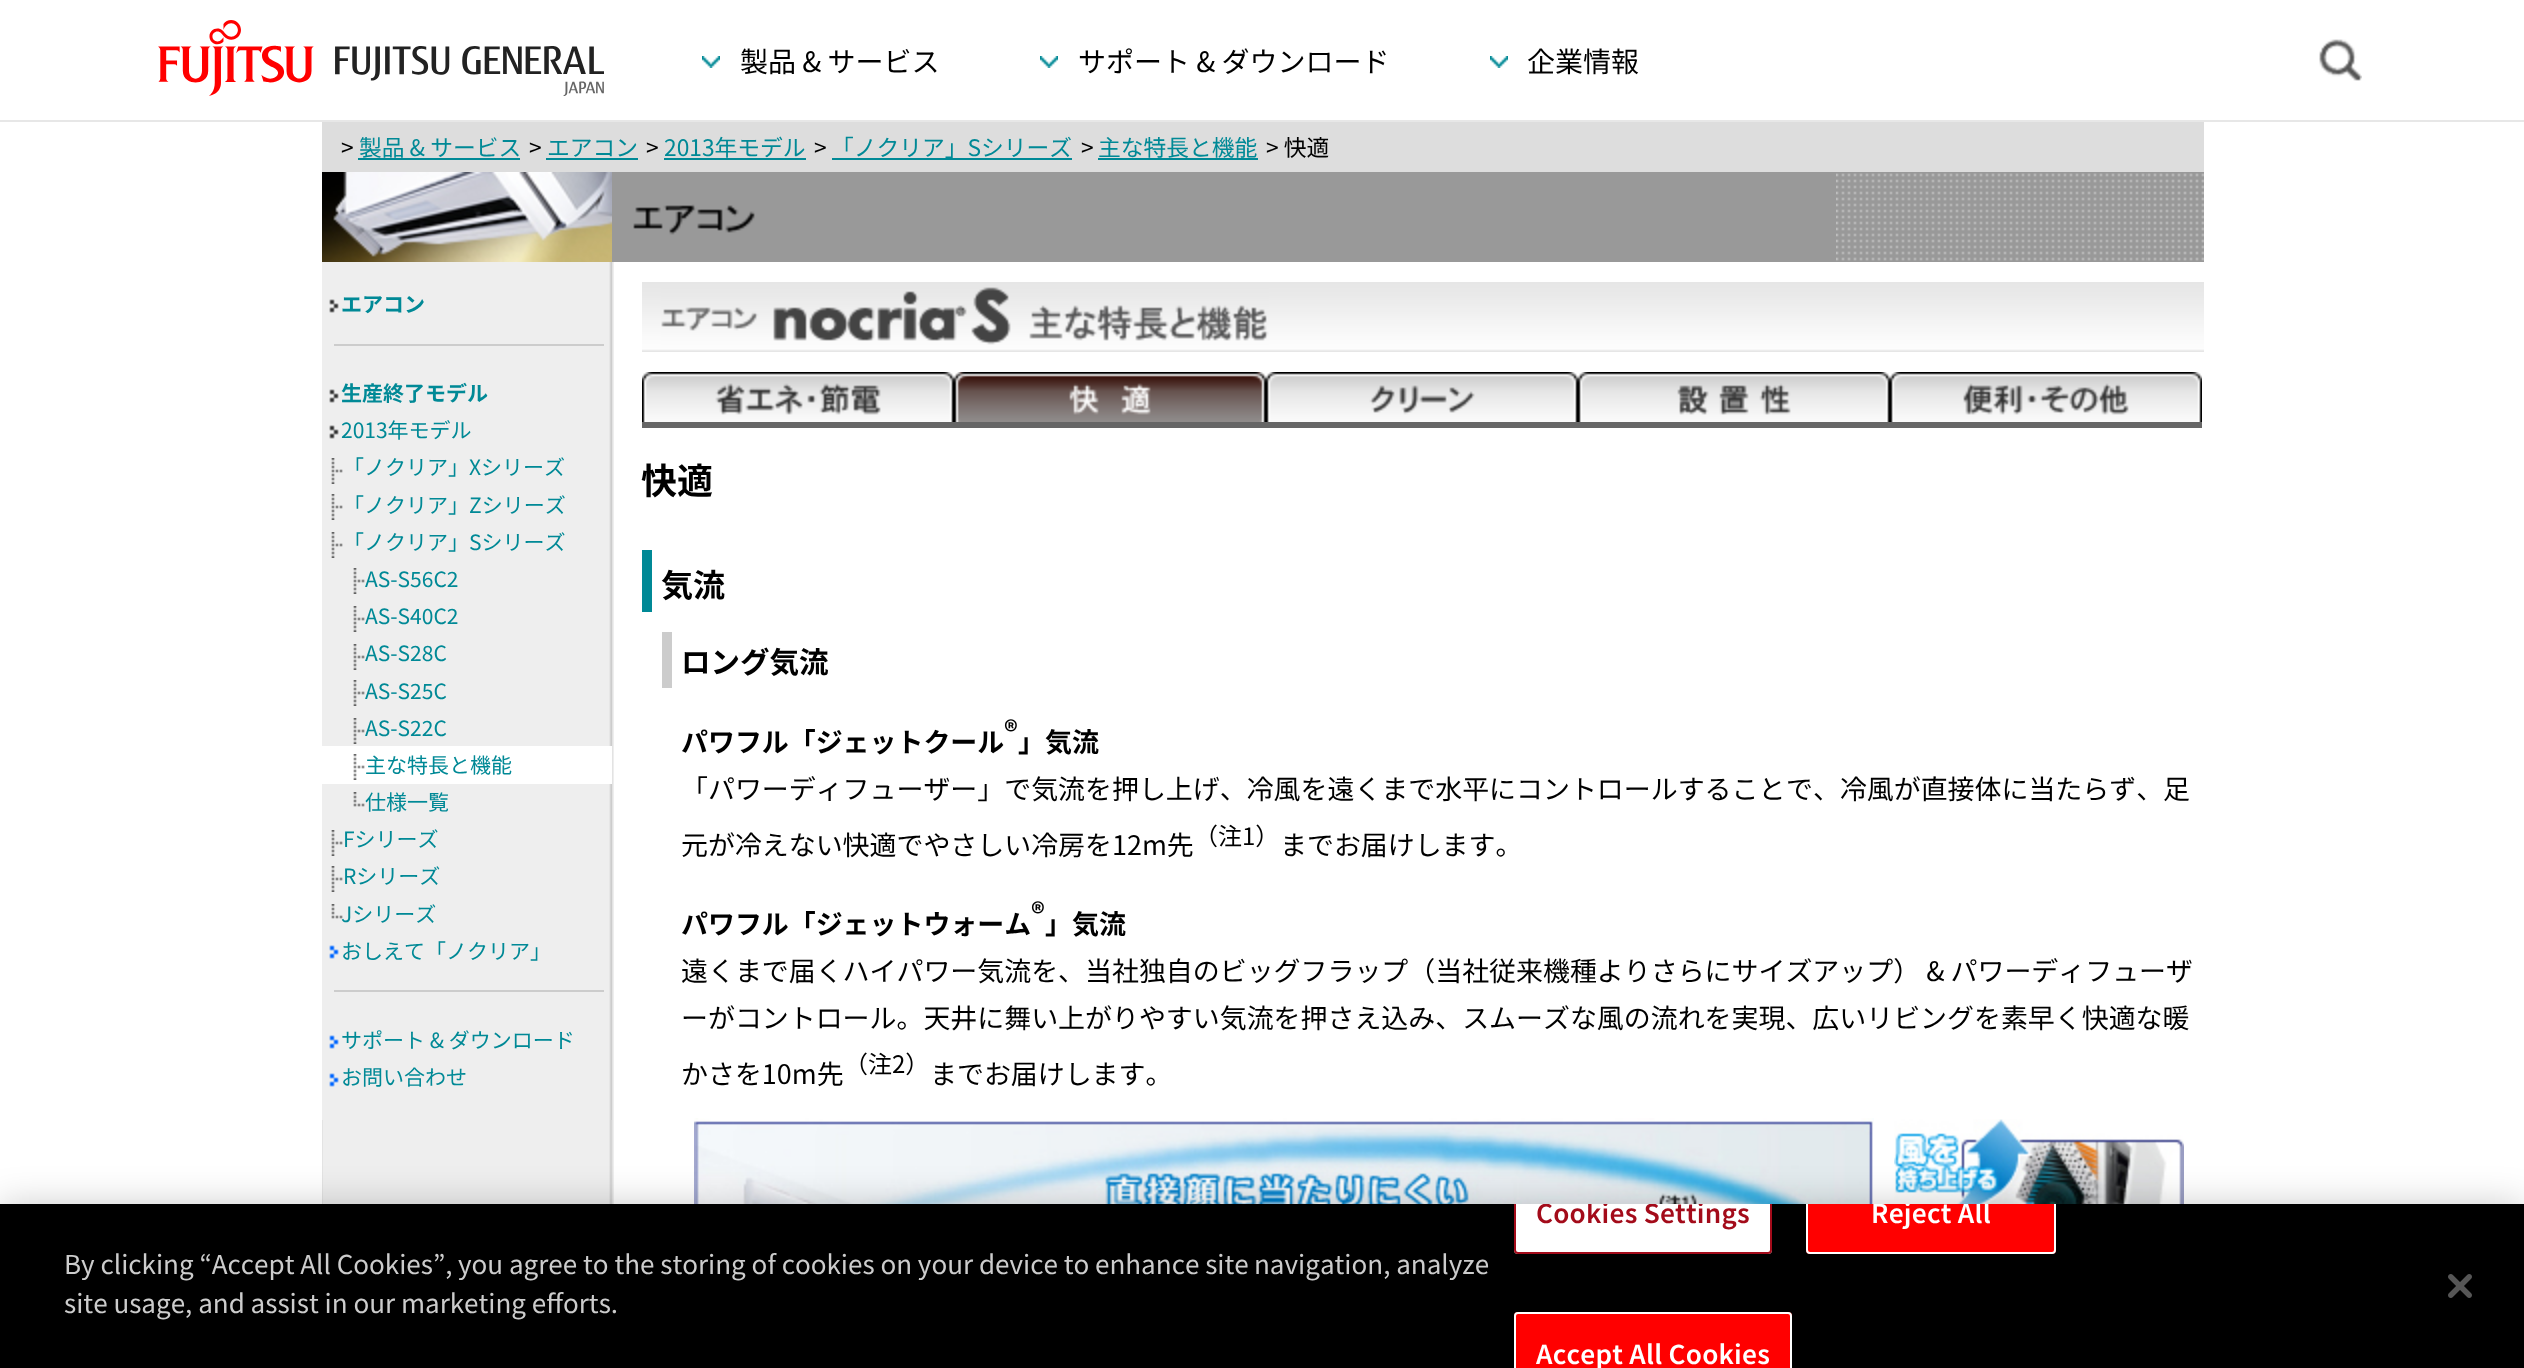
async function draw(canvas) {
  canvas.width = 2524
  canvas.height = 1368
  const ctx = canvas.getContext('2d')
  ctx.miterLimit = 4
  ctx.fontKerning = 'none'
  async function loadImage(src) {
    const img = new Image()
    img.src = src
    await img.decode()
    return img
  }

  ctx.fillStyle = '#fff'
  ctx.fillRect(0, 0, 2524, 1368)
  ctx.fillStyle = '#e7e7e7'
  ctx.fillRect(0, 120, 2524, 2)
  ctx.drawImage(await loadImage('image0.png'), 158, 20, 446, 76)
  ctx.drawImage(await loadImage('image1.png'), 702, 56, 18, 12)
  ctx.font = '28px Noto Sans JP'
  ctx.fillStyle = '#000'
  ctx.fillText('製品 & サービス', 740, 72)
  ctx.drawImage(await loadImage('image1.png'), 1040, 56, 18, 12)
  ctx.fillText('サポート & ダウンロード', 1078, 72)
  ctx.drawImage(await loadImage('image1.png'), 1490, 56, 18, 12)
  ctx.fillText('企業情報', 1527, 72)
  ctx.drawImage(await loadImage('image2.png'), 2319, 39, 43, 42)
  ctx.fillStyle = '#ddd'
  ctx.fillRect(322, 122, 1882, 50)
  ctx.font = '22.75px Noto Sans JP'
  ctx.fillStyle = '#000'
  ctx.fillText('>', 341, 156)
  ctx.fillStyle = '#008996'
  ctx.fillText('製品 & サービス', 359, 156)
  ctx.fillRect(358, 158, 162, 2)
  ctx.fillStyle = '#000'
  ctx.fillText('>', 529, 156)
  ctx.fillStyle = '#008996'
  ctx.fillText('エアコン', 547, 156)
  ctx.fillRect(546, 158, 92, 2)
  ctx.fillStyle = '#000'
  ctx.fillText('>', 646, 156)
  ctx.fillStyle = '#008996'
  ctx.fillText('2013年モデル', 664, 156)
  ctx.fillRect(664, 158, 142, 2)
  ctx.fillStyle = '#000'
  ctx.fillText('>', 814, 156)
  ctx.fillStyle = '#008996'
  ctx.fillText('「ノクリア」Sシリーズ', 831, 156)
  ctx.fillRect(832, 158, 240, 2)
  ctx.fillStyle = '#000'
  ctx.fillText('>', 1081, 156)
  ctx.fillStyle = '#008996'
  ctx.fillText('主な特長と機能', 1098, 156)
  ctx.fillRect(1098, 158, 160, 2)
  ctx.fillStyle = '#000'
  ctx.fillText('> 快適', 1266, 156)
  ctx.fillStyle = '#999'
  ctx.fillRect(612, 172, 1592, 90)
  ctx.drawImage(await loadImage('image3.png'), 322, 172, 290, 90)
  ctx.drawImage(await loadImage('image4.png'), 633, 204, 122, 31)
  ctx.drawImage(await loadImage('image5.png'), 2146, 173, 58, 88)
  ctx.drawImage(await loadImage('image6.png'), 1836, 173, 310, 88)
  ctx.drawImage(await loadImage('image7.png'), 322, 262, 292, 942)
  ctx.drawImage(await loadImage('image8.png'), 322, 262, 290, 858)
  ctx.drawImage(await loadImage('image9.png'), 329, 299, 10, 14)
  ctx.font = 'bold 21px Noto Sans JP'
  ctx.fillStyle = '#008996'
  ctx.fillText('エアコン', 341, 312)
  ctx.fillStyle = '#ccc'
  ctx.fillRect(334, 344, 270, 2)
  ctx.drawImage(await loadImage('image9.png'), 329, 389, 10, 14)
  ctx.fillStyle = '#008996'
  ctx.fillText('生産終了モデル', 341, 401)
  ctx.drawImage(await loadImage('image9.png'), 329, 425, 10, 14)
  ctx.font = '21px Noto Sans JP'
  ctx.fillText('2013年モデル', 341, 438)
  ctx.drawImage(await loadImage('image10.png'), 331, 458, 12, 26)
  ctx.fillText('「ノクリア」Xシリーズ', 343, 475)
  ctx.drawImage(await loadImage('image10.png'), 331, 494, 12, 26)
  ctx.fillText('「ノクリア」Zシリーズ', 343, 513)
  ctx.drawImage(await loadImage('image10.png'), 331, 532, 12, 26)
  ctx.fillText('「ノクリア」Sシリーズ', 343, 550)
  ctx.drawImage(await loadImage('image10.png'), 353, 568, 12, 26)
  ctx.fillText('AS-S56C2', 365, 587)
  ctx.drawImage(await loadImage('image10.png'), 353, 606, 12, 26)
  ctx.fillText('AS-S40C2', 365, 624)
  ctx.drawImage(await loadImage('image10.png'), 353, 644, 12, 26)
  ctx.fillText('AS-S28C', 365, 661)
  ctx.drawImage(await loadImage('image10.png'), 353, 680, 12, 26)
  ctx.fillText('AS-S25C', 365, 699)
  ctx.drawImage(await loadImage('image10.png'), 353, 718, 12, 26)
  ctx.fillText('AS-S22C', 365, 736)
  ctx.fillStyle = '#fff'
  ctx.fillRect(322, 746, 290, 38)
  ctx.drawImage(await loadImage('image11.png'), 353, 754, 12, 26)
  ctx.fillStyle = '#008996'
  ctx.fillText('主な特長と機能', 365, 773)
  ctx.drawImage(await loadImage('image12.png'), 353, 792, 12, 15)
  ctx.fillText('仕様一覧', 365, 810)
  ctx.drawImage(await loadImage('image10.png'), 331, 830, 12, 26)
  ctx.fillText('Fシリーズ', 343, 847)
  ctx.drawImage(await loadImage('image10.png'), 331, 866, 12, 26)
  ctx.fillText('Rシリーズ', 343, 884)
  ctx.drawImage(await loadImage('image12.png'), 331, 904, 12, 15)
  ctx.fillText('Jシリーズ', 341, 922)
  ctx.drawImage(await loadImage('image13.png'), 329, 945, 10, 14)
  ctx.fillText('おしえて「ノクリア」', 341, 959)
  ctx.fillStyle = '#ccc'
  ctx.fillRect(334, 990, 270, 2)
  ctx.drawImage(await loadImage('image13.png'), 329, 1035, 10, 14)
  ctx.fillStyle = '#008996'
  ctx.fillText('サポート & ダウンロード', 341, 1048)
  ctx.drawImage(await loadImage('image13.png'), 329, 1073, 10, 14)
  ctx.fillText('お問い合わせ', 341, 1085)
  ctx.drawImage(await loadImage('image14.png'), 642, 282, 1562, 70)
  ctx.drawImage(await loadImage('image15.png'), 661, 287, 608, 58)
  ctx.drawImage(await loadImage('image16.png'), 642, 372, 312, 50)
  ctx.drawImage(await loadImage('image17.png'), 954, 372, 312, 50)
  ctx.drawImage(await loadImage('image18.png'), 1266, 372, 312, 50)
  ctx.drawImage(await loadImage('image19.png'), 1578, 372, 312, 50)
  ctx.drawImage(await loadImage('image20.png'), 1890, 372, 312, 50)
  ctx.fillStyle = '#666'
  ctx.fillRect(642, 422, 1560, 6)
  ctx.font = 'bold 36px Noto Sans JP'
  ctx.fillStyle = '#000'
  ctx.fillText('快適', 641, 494)
  ctx.fillStyle = '#008996'
  ctx.fillRect(642, 550, 10, 62)
  ctx.font = 'bold 32px Noto Sans JP'
  ctx.fillStyle = '#000'
  ctx.fillText('気流', 661, 597)
  ctx.fillStyle = '#ccc'
  ctx.fillRect(662, 632, 10, 56)
  ctx.font = 'bold 29.5px Noto Sans JP'
  ctx.fillStyle = '#000'
  ctx.fillText('ロング気流', 681, 673)
  ctx.font = 'bold 26.95px Noto Sans JP'
  ctx.fillText('®', 1004, 741)
  ctx.fillText('パワフル「ジェットクール', 681, 752)
  ctx.fillText('」気流', 1018, 752)
  ctx.font = '26.95px Noto Sans JP'
  ctx.fillText('「パワーディフューザー」で気流を押し上げ、冷風を遠くまで水平にコントロールすること', 681, 799)
  ctx.fillText('で、冷風が直接体に当たらず、足', 1786, 799)
  ctx.fillText('元が冷えない快適でやさしい冷房を12m先', 681, 855)
  ctx.font = '24px Noto Sans JP'
  ctx.fillText('（注1）', 1194, 845)
  ctx.font = '26.95px Noto Sans JP'
  ctx.fillText('までお届けします。', 1280, 855)
  ctx.font = 'bold 26.95px Noto Sans JP'
  ctx.fillText('®', 1031, 923)
  ctx.fillText('パワフル「ジェットウォーム', 681, 934)
  ctx.fillText('」気流', 1045, 934)
  ctx.font = '26.95px Noto Sans JP'
  ctx.fillText('遠くまで届くハイパワー気流を、当社独自のビッグフラップ（当社従来機種よりさらにサイズアップ） & パワーディフューザ', 681, 981)
  ctx.fillText('ーがコントロール。天井に舞い上がりやすい気流を押さえ込み、スムーズな風の流れを実現、広いリビングを素早く快適な暖', 681, 1028)
  ctx.fillText('かさを10m先', 681, 1084)
  ctx.font = '24px Noto Sans JP'
  ctx.fillText('（注2）', 844, 1073)
  ctx.font = '26.95px Noto Sans JP'
  ctx.fillText('までお届けします。', 930, 1084)
  ctx.drawImage(await loadImage('image21.png'), 694, 1118, 1180, 86)
  ctx.drawImage(await loadImage('image22.png'), 1894, 1119, 290, 85)
  ctx.fillStyle = '#00000033'
  ctx.filter = 'blur(18px)'
  ctx.beginPath()
  ctx.rect(0, 1204, 2524, 164)
  ctx.fill()
  ctx.filter = 'none'
  ctx.fillStyle = '#000'
  ctx.fillRect(0, 1204, 2524, 164)
  ctx.font = '26.02px Noto Sans JP'
  ctx.fillStyle = '#ccc'
  ctx.fillText('By clicking “Accept All Cookies”,', 64, 1274)
  ctx.fillText('you agree to the storing of cookies on your device to enhance site', 458, 1274)
  ctx.fillText('navigation, analyze', 1254, 1274)
  ctx.fillText('site usage, and assist in our marketing efforts.', 64, 1313)
  ctx.fillStyle = '#fff'
  ctx.beginPath()
  ctx.roundRect(1514, 1204, 258, 50, [0, 0, 4, 4])
  ctx.fill()
  ctx.save()
  ctx.beginPath()
  ctx.rect(0, 1204, 2524, 164)
  ctx.clip()
  ctx.beginPath()
  ctx.roundRect(1515, 1171, 256, 82, 3)
  ctx.strokeStyle = '#a30b1a'
  ctx.lineWidth = 2
  ctx.stroke()
  ctx.letterSpacing = '0.25px'
  ctx.font = '600 26.02px Noto Sans JP'
  ctx.fillStyle = '#a30b1a'
  ctx.fillText('Cookies Settings', 1536, 1223)
  ctx.restore()
  ctx.fillStyle = '#f00'
  ctx.beginPath()
  ctx.roundRect(1806, 1204, 250, 50, [0, 0, 4, 4])
  ctx.fill()
  ctx.save()
  ctx.beginPath()
  ctx.rect(0, 1204, 2524, 164)
  ctx.clip()
  ctx.beginPath()
  ctx.roundRect(1807, 1171, 248, 82, 3)
  ctx.strokeStyle = '#fff'
  ctx.lineWidth = 2
  ctx.stroke()
  ctx.letterSpacing = '0.25px'
  ctx.font = '600 26.02px Noto Sans JP'
  ctx.fillStyle = '#fff'
  ctx.fillText('Reject All', 1871, 1223)
  ctx.restore()
  ctx.beginPath()
  ctx.roundRect(1514, 1312, 278, 56, [4, 4, 0, 0])
  ctx.fill()
  ctx.beginPath()
  ctx.roundRect(1515, 1313, 276, 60, 3)
  ctx.strokeStyle = '#fff'
  ctx.lineWidth = 2
  ctx.stroke()
  ctx.letterSpacing = '0.25px'
  ctx.font = '600 26.02px Noto Sans JP'
  ctx.fillStyle = '#fff'
  ctx.fillText('Accept All Cookies', 1536, 1364)
  ctx.drawImage(await loadImage('image23.png'), 2448, 1274, 24, 24)
}

draw(document.querySelector('canvas'))
